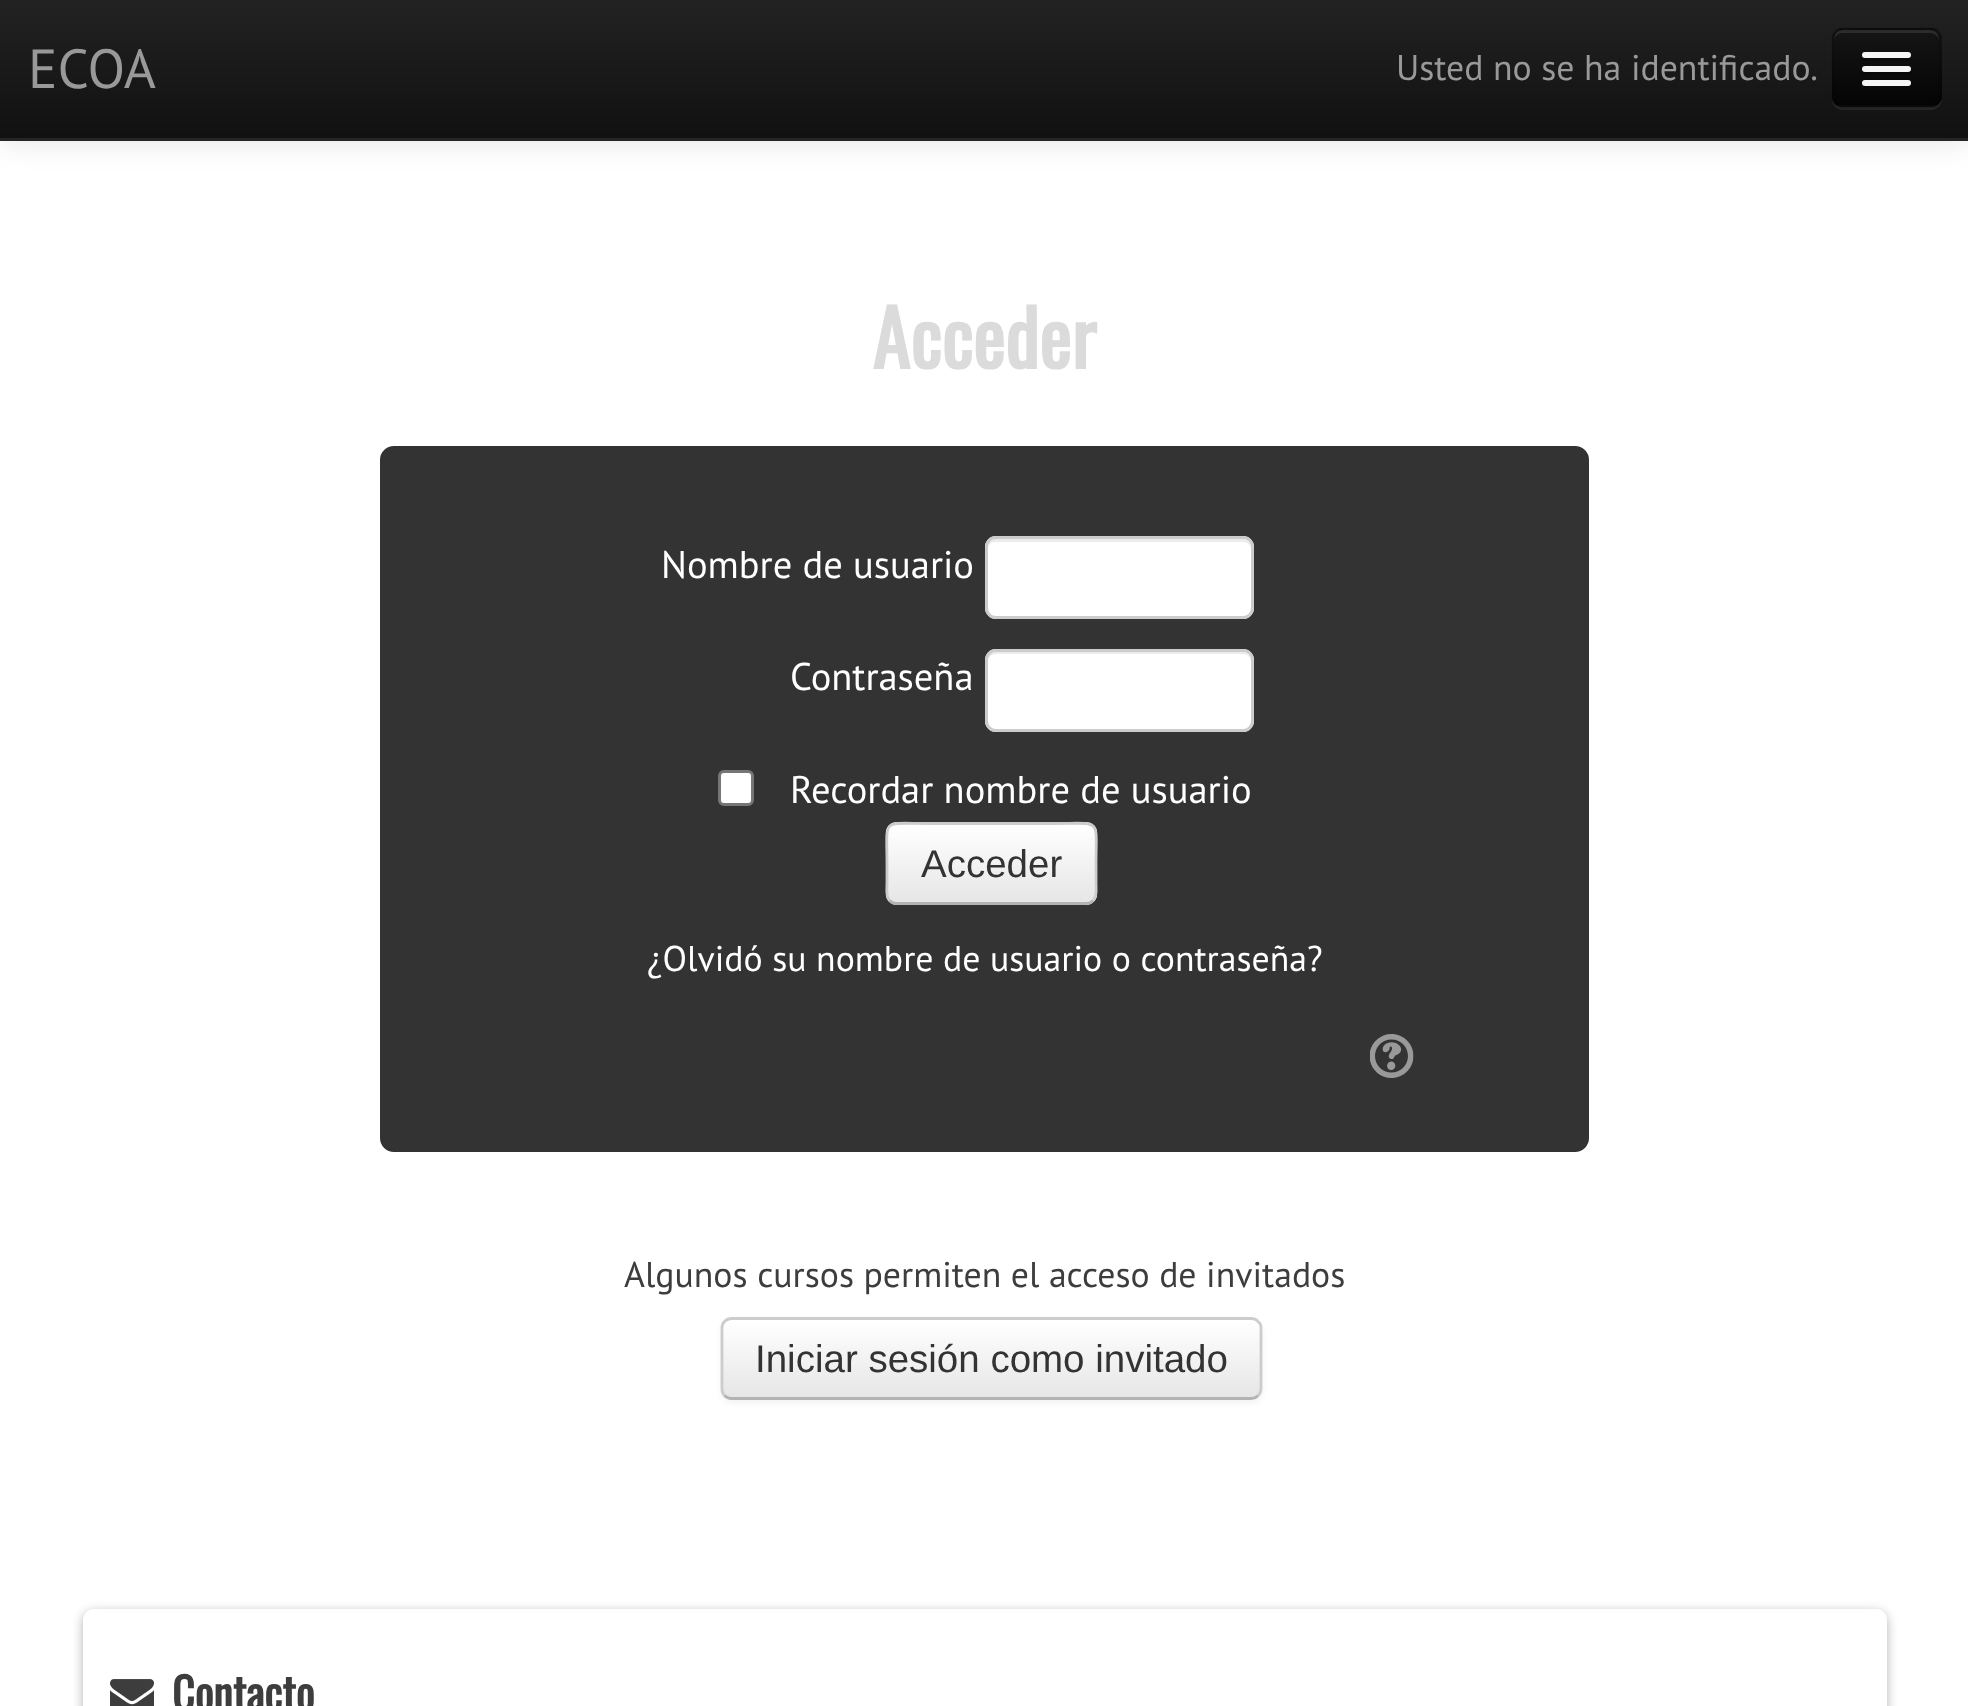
async function draw(canvas) {
  canvas.width = 1968
  canvas.height = 1706
  const ctx = canvas.getContext('2d')
  ctx.miterLimit = 4
  ctx.fontKerning = 'normal'
  async function loadImage(src) {
    const img = new Image()
    img.src = src
    await img.decode()
    return img
  }
  let gradient

  ctx.fillStyle = '#fff'
  ctx.fillRect(0, 0, 1968, 1706)
  ctx.fillStyle = '#0000001a'
  ctx.filter = 'blur(14px)'
  ctx.beginPath()
  ctx.rect(0, 3, 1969, 140)
  ctx.fill()
  ctx.filter = 'none'
  gradient = ctx.createLinearGradient(985, 0, 985, 138)
  gradient.addColorStop(0, '#222')
  gradient.addColorStop(1, '#111')
  ctx.fillStyle = gradient
  ctx.fillRect(0, 0, 1968, 138)
  ctx.fillStyle = '#252525'
  ctx.fillRect(0, 138, 1968, 3)
  ctx.font = '55px PT Sans'
  ctx.fillStyle = '#999'
  ctx.fillText('ECOA', 28, 88)
  ctx.font = '35.75px PT Sans'
  ctx.fillText('Usted no se ha identificado.', 1396, 80)
  ctx.fillStyle = '#ffffff12'
  ctx.beginPath()
  ctx.moveTo(1832, 100)
  ctx.bezierCurveTo(1832, 105, 1837, 110, 1843, 110)
  ctx.lineTo(1931, 110)
  ctx.bezierCurveTo(1937, 110, 1942, 105, 1942, 99)
  ctx.lineTo(1942, 41)
  ctx.lineTo(1941, 38)
  ctx.lineTo(1942, 96)
  ctx.bezierCurveTo(1942, 102, 1937, 107, 1930, 107)
  ctx.lineTo(1842, 107)
  ctx.bezierCurveTo(1838, 107, 1833, 104, 1832, 100)
  ctx.closePath()
  ctx.fill()
  ctx.fillStyle = '#0e0e0e'
  ctx.beginPath()
  ctx.roundRect(1832, 28, 110, 79, 11)
  ctx.fill()
  ctx.save()
  ctx.beginPath()
  ctx.roundRect(1832, 28, 110, 79, 11)
  ctx.clip()
  gradient = ctx.createLinearGradient(1887, 30, 1887, 105)
  gradient.addColorStop(0, '#151515')
  gradient.addColorStop(1, '#040404')
  ctx.fillStyle = gradient
  ctx.fillRect(1832, 30, 110, 75)
  ctx.restore()
  ctx.fillStyle = '#2c2c2c'
  ctx.beginPath()
  ctx.moveTo(1842, 33)
  ctx.lineTo(1930, 33)
  ctx.bezierCurveTo(1935, 33, 1939, 37, 1939, 41)
  ctx.bezierCurveTo(1939, 27, 1928, 30, 1916, 30)
  ctx.lineTo(1857, 30)
  ctx.bezierCurveTo(1845, 30, 1834, 27, 1834, 41)
  ctx.bezierCurveTo(1834, 37, 1838, 33, 1842, 33)
  ctx.closePath()
  ctx.fill()
  ctx.beginPath()
  ctx.moveTo(1937.5, 103)
  ctx.bezierCurveTo(1935.5, 105, 1933, 106, 1930.5, 106)
  ctx.lineTo(1842.5, 106)
  ctx.bezierCurveTo(1840, 106, 1837.5, 105, 1835.5, 103)
  ctx.strokeStyle = '#00000040'
  ctx.lineWidth = 2.8
  ctx.stroke()
  ctx.beginPath()
  ctx.moveTo(1835.5, 103)
  ctx.bezierCurveTo(1834, 101.5, 1833, 99, 1833, 96)
  ctx.lineTo(1833, 38.5)
  ctx.bezierCurveTo(1833, 36, 1834, 33.5, 1835.5, 31.5)
  ctx.bezierCurveTo(1837.5, 30, 1840, 29, 1842.5, 29)
  ctx.lineTo(1930.5, 29)
  ctx.bezierCurveTo(1933, 29, 1935.5, 30, 1937.5, 31.5)
  ctx.bezierCurveTo(1939, 33.5, 1940, 36, 1940, 38.5)
  ctx.lineTo(1940, 96)
  ctx.bezierCurveTo(1940, 99, 1939, 101.5, 1937.5, 103)
  ctx.strokeStyle = '#0000001a'
  ctx.stroke()
  ctx.fillStyle = '#0b0b0b'
  ctx.beginPath()
  ctx.moveTo(1862, 57)
  ctx.bezierCurveTo(1859, 62, 1871, 61, 1872, 61)
  ctx.lineTo(1901, 61)
  ctx.bezierCurveTo(1902, 61, 1914, 62, 1911, 57)
  ctx.lineTo(1909, 58)
  ctx.lineTo(1864, 58)
  ctx.closePath()
  ctx.fill()
  ctx.fillStyle = '#f5f5f5'
  ctx.beginPath()
  ctx.roundRect(1862, 52, 49, 6, 3)
  ctx.fill()
  ctx.fillStyle = '#080808'
  ctx.beginPath()
  ctx.moveTo(1862, 71)
  ctx.bezierCurveTo(1859, 76, 1871, 75, 1872, 75)
  ctx.lineTo(1901, 75)
  ctx.bezierCurveTo(1902, 75, 1914, 76, 1911, 71)
  ctx.lineTo(1909, 71)
  ctx.lineTo(1864, 71)
  ctx.closePath()
  ctx.fill()
  ctx.fillStyle = '#f5f5f5'
  ctx.beginPath()
  ctx.roundRect(1862, 66, 49, 6, 3)
  ctx.fill()
  ctx.beginPath()
  ctx.roundRect(1862, 80, 49, 6, 3)
  ctx.fill()
  ctx.font = 'bold 77px Oswald'
  ctx.fillStyle = '#dbdbdb'
  ctx.fillText('Acceder', 872, 369)
  ctx.fillStyle = '#333'
  ctx.beginPath()
  ctx.roundRect(373, 439, 1223, 720, 21)
  ctx.fill()
  ctx.strokeStyle = '#fff'
  ctx.lineWidth = 14
  ctx.stroke()
  ctx.font = '38.5px PT Sans'
  ctx.fillStyle = '#fff'
  ctx.fillText('Nombre de usuario', 661, 578)
  ctx.beginPath()
  ctx.roundRect(985, 536, 269, 83, 11)
  ctx.fill()
  ctx.fillStyle = '#ececec'
  ctx.beginPath()
  ctx.moveTo(996, 542)
  ctx.lineTo(1243, 542)
  ctx.bezierCurveTo(1248, 542, 1251, 545, 1251, 550)
  ctx.lineTo(1251, 547)
  ctx.bezierCurveTo(1251, 543, 1247, 539, 1243, 539)
  ctx.lineTo(995, 539)
  ctx.bezierCurveTo(991, 539, 987, 543, 987, 547)
  ctx.lineTo(987, 550)
  ctx.bezierCurveTo(987, 545, 991, 542, 996, 542)
  ctx.closePath()
  ctx.fill()
  ctx.beginPath()
  ctx.roundRect(986.5, 537.5, 266, 80, 9.5)
  ctx.strokeStyle = '#ccc'
  ctx.lineWidth = 3
  ctx.stroke()
  ctx.fillStyle = '#fff'
  ctx.fillText('Contraseña', 790, 690)
  ctx.beginPath()
  ctx.roundRect(985, 649, 269, 83, 11)
  ctx.fill()
  ctx.fillStyle = '#ececec'
  ctx.beginPath()
  ctx.moveTo(996, 654)
  ctx.lineTo(1243, 654)
  ctx.bezierCurveTo(1248, 654, 1251, 658, 1251, 663)
  ctx.lineTo(1251, 660)
  ctx.bezierCurveTo(1251, 656, 1247, 652, 1243, 652)
  ctx.lineTo(995, 652)
  ctx.bezierCurveTo(991, 652, 987, 656, 987, 660)
  ctx.lineTo(987, 663)
  ctx.bezierCurveTo(987, 658, 991, 654, 996, 654)
  ctx.closePath()
  ctx.fill()
  ctx.beginPath()
  ctx.roundRect(986.5, 650.5, 266, 80, 9.5)
  ctx.stroke()
  ctx.fillStyle = '#fff'
  ctx.beginPath()
  ctx.roundRect(719.5, 771.5, 33, 33, 4.5)
  ctx.fill()
  ctx.strokeStyle = '#767676'
  ctx.stroke()
  ctx.fillText('Recordar nombre de usuario', 790, 803)
  ctx.fillStyle = '#f5f5f5'
  ctx.beginPath()
  ctx.roundRect(886, 822, 211, 83, 11)
  ctx.fill()
  ctx.save()
  ctx.beginPath()
  ctx.roundRect(886, 822, 211, 83, 11)
  ctx.clip()
  gradient = ctx.createLinearGradient(991, 825, 991, 902)
  gradient.addColorStop(0, '#fff')
  gradient.addColorStop(1, '#e6e6e6')
  ctx.fillStyle = gradient
  ctx.fillRect(886, 825, 211, 77)
  ctx.restore()
  ctx.fillStyle = '#ffffff33'
  ctx.beginPath()
  ctx.moveTo(896, 828)
  ctx.lineTo(1086, 828)
  ctx.bezierCurveTo(1096, 828, 1094, 839, 1094, 846)
  ctx.lineTo(1094, 898)
  ctx.bezierCurveTo(1095, 897, 1095, 896, 1095, 894)
  ctx.lineTo(1095, 833)
  ctx.bezierCurveTo(1095, 829, 1091, 825, 1087, 825)
  ctx.lineTo(896, 825)
  ctx.bezierCurveTo(892, 825, 888, 829, 888, 833)
  ctx.lineTo(888, 836)
  ctx.bezierCurveTo(888, 831, 892, 828, 896, 828)
  ctx.closePath()
  ctx.fill()
  ctx.beginPath()
  ctx.moveTo(1093, 900.5)
  ctx.bezierCurveTo(1091.5, 902.5, 1089, 903.5, 1086, 903.5)
  ctx.lineTo(896.5, 903.5)
  ctx.bezierCurveTo(894, 903.5, 891.5, 902.5, 889.5, 900.5)
  ctx.strokeStyle = '#b3b3b3'
  ctx.lineWidth = 2.8
  ctx.stroke()
  ctx.beginPath()
  ctx.moveTo(889.5, 900.5)
  ctx.bezierCurveTo(885.5, 896, 887, 889, 887, 883.5)
  ctx.lineTo(887, 863.5)
  ctx.bezierCurveTo(887, 817.5, 880.5, 823.5, 928, 823.5)
  ctx.lineTo(1054.5, 823.5)
  ctx.bezierCurveTo(1102.5, 823.5, 1096, 817.5, 1096, 863.5)
  ctx.lineTo(1096, 883.5)
  ctx.bezierCurveTo(1096, 889, 1097.5, 896, 1093, 900.5)
  ctx.strokeStyle = '#ccc'
  ctx.stroke()
  ctx.font = '38.5px Liberation Sans'
  ctx.fillStyle = '#333'
  ctx.fillText('Acceder', 921, 877)
  ctx.font = '35.75px PT Sans'
  ctx.fillStyle = '#fff'
  ctx.fillText('¿Olvidó su nombre de usuario o contraseña?', 647, 971)
  ctx.drawImage(await loadImage('image0.png'), 1370, 1034, 44, 44)
  ctx.fillStyle = '#3d3d3d'
  ctx.fillText('Algunos cursos permiten el acceso de invitados', 624, 1287)
  ctx.fillStyle = '#0000000d'
  ctx.filter = 'blur(3px)'
  ctx.beginPath()
  ctx.roundRect(721, 1320, 541, 83, 11)
  ctx.fill()
  ctx.filter = 'none'
  ctx.save()
  ctx.beginPath()
  ctx.roundRect(721, 1317, 541, 83, 11)
  ctx.clip()
  gradient = ctx.createLinearGradient(991, 1320, 991, 1397)
  gradient.addColorStop(0, '#fff')
  gradient.addColorStop(1, '#e6e6e6')
  ctx.fillStyle = gradient
  ctx.fillRect(721, 1320, 541, 77)
  ctx.restore()
  ctx.beginPath()
  ctx.moveTo(1258, 1395.5)
  ctx.bezierCurveTo(1256.5, 1397.5, 1254, 1398.5, 1251, 1398.5)
  ctx.lineTo(731.5, 1398.5)
  ctx.bezierCurveTo(729, 1398.5, 726.5, 1397.5, 724.5, 1395.5)
  ctx.strokeStyle = '#b3b3b3'
  ctx.stroke()
  ctx.beginPath()
  ctx.moveTo(724.5, 1395.5)
  ctx.bezierCurveTo(723, 1394, 722, 1391.5, 722, 1389)
  ctx.lineTo(722, 1328)
  ctx.bezierCurveTo(722, 1325.5, 723, 1323, 724.5, 1321.5)
  ctx.bezierCurveTo(726.5, 1319.5, 729, 1318.5, 731.5, 1318.5)
  ctx.lineTo(1251, 1318.5)
  ctx.bezierCurveTo(1254, 1318.5, 1256.5, 1319.5, 1258, 1321.5)
  ctx.bezierCurveTo(1260, 1323, 1261, 1325.5, 1261, 1328)
  ctx.lineTo(1261, 1389)
  ctx.bezierCurveTo(1261, 1391.5, 1260, 1394, 1258, 1395.5)
  ctx.strokeStyle = '#ccc'
  ctx.stroke()
  ctx.font = '38.5px Liberation Sans'
  ctx.fillStyle = '#333'
  ctx.fillText('Iniciar sesión como invitado', 755, 1372)
  ctx.fillStyle = '#0000004d'
  ctx.filter = 'blur(5.5px)'
  ctx.beginPath()
  ctx.roundRect(83, 1612, 1804, 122, 11)
  ctx.fill()
  ctx.filter = 'none'
  ctx.fillStyle = '#fff'
  ctx.beginPath()
  ctx.roundRect(83, 1609, 1804, 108, 11)
  ctx.fill()
  ctx.drawImage(await loadImage('image1.png'), 110, 1679, 44, 27)
  ctx.font = 'bold 44px Oswald'
  ctx.fillStyle = '#3d3d3d'
  ctx.fillText('Contacto', 172, 1711)
}

draw(document.querySelector('canvas'))
